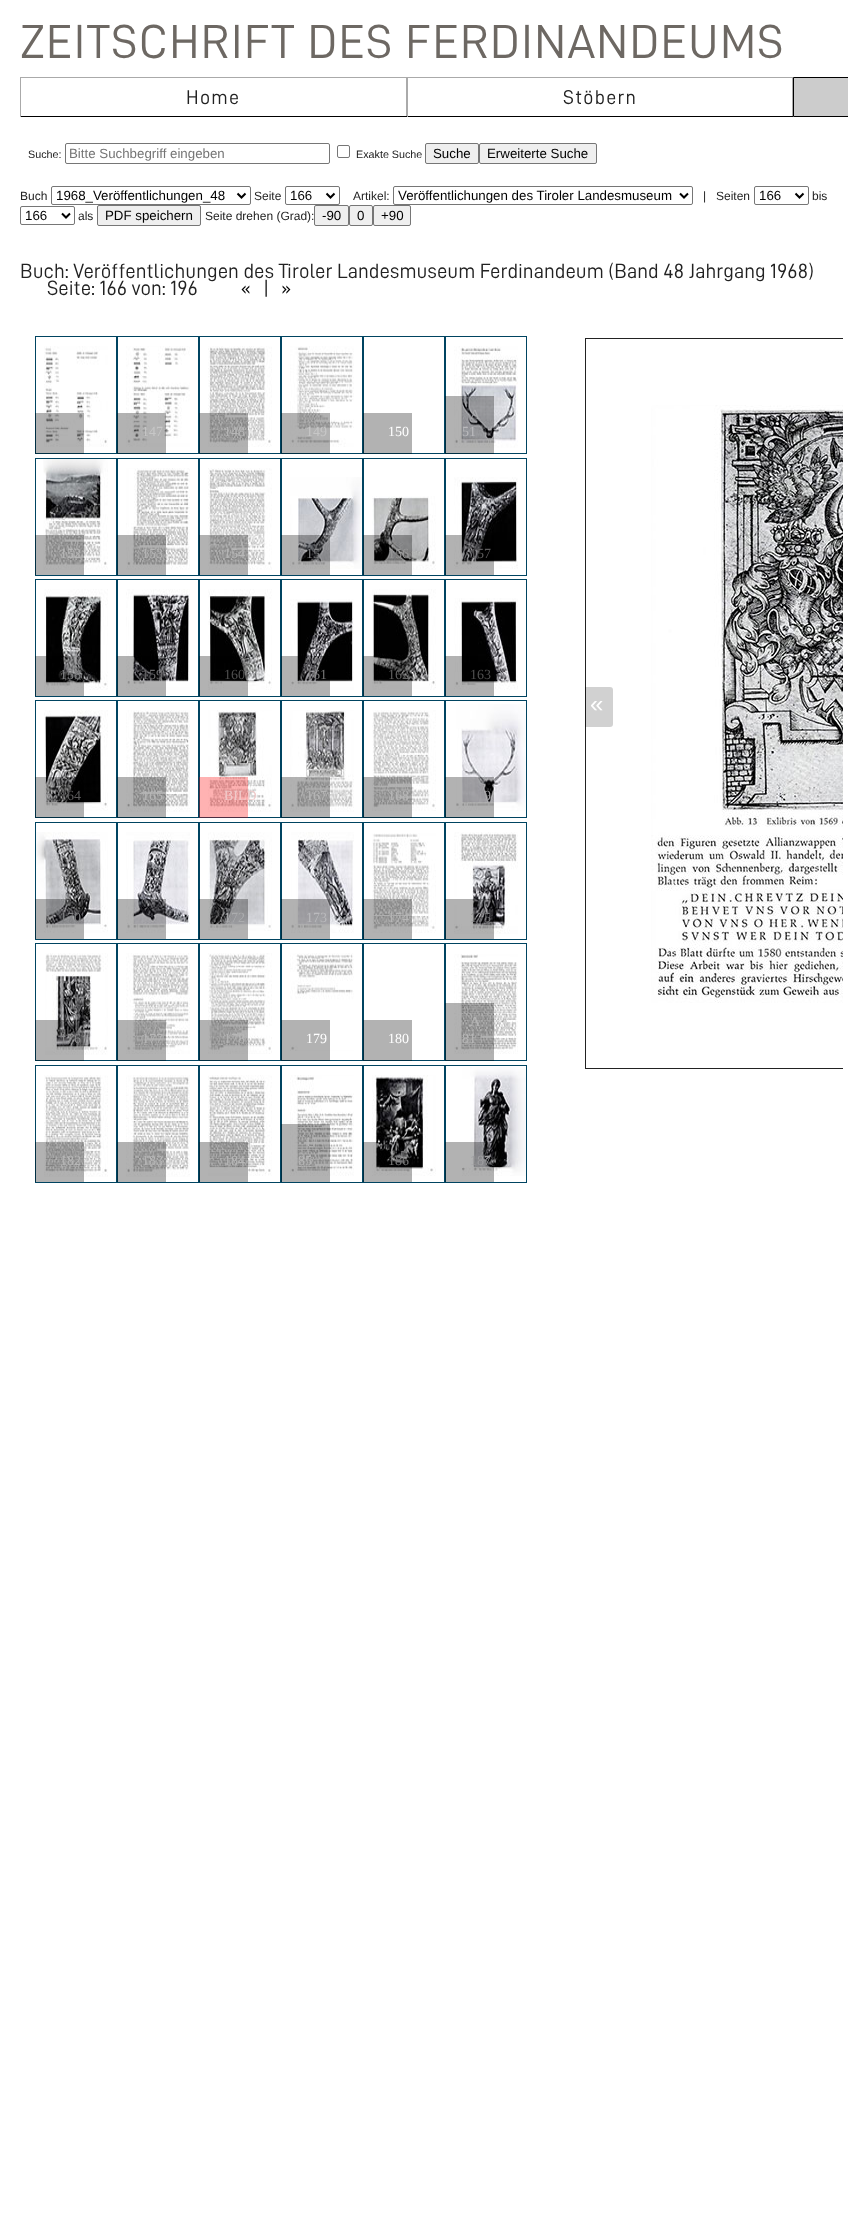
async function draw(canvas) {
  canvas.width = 848
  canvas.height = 2222
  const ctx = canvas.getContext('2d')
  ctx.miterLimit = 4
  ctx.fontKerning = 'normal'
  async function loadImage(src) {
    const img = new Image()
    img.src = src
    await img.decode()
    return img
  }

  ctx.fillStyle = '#fff'
  ctx.fillRect(0, 0, 848, 2222)
  ctx.letterSpacing = '1.3px'
  ctx.font = '48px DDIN'
  ctx.fillStyle = '#6d6863'
  ctx.fillText('ZEITSCHRIFT DES FERDINANDEUMS', 20, 58)
  ctx.fillStyle = '#aaa'
  ctx.fillRect(20, 77, 773, 1)
  ctx.fillRect(406, 77, 1, 40)
  ctx.fillStyle = '#000'
  ctx.fillRect(20, 116, 387, 1)
  ctx.fillStyle = '#aaa'
  ctx.fillRect(20, 77, 1, 40)
  ctx.font = '20px DDIN'
  ctx.fillStyle = '#222'
  ctx.fillText('Home', 186, 104)
  ctx.fillStyle = '#aaa'
  ctx.fillRect(792, 77, 1, 40)
  ctx.fillStyle = '#000'
  ctx.fillRect(407, 116, 386, 1)
  ctx.fillStyle = '#aaa'
  ctx.fillRect(407, 77, 1, 40)
  ctx.fillStyle = '#222'
  ctx.fillText('Stöbern', 563, 104)
  ctx.fillStyle = '#ccc'
  ctx.beginPath()
  ctx.rect(793.5, 77.5, 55, 39)
  ctx.fill()
  ctx.strokeStyle = '#000'
  ctx.stroke()
  ctx.letterSpacing = '0px'
  ctx.font = '10.75px Liberation Sans'
  ctx.fillStyle = '#222'
  ctx.fillText('Suche:', 28, 158)
  ctx.beginPath()
  ctx.roundRect(65.5, 143.5, 264, 20, 1.5)
  ctx.strokeStyle = '#767676'
  ctx.stroke()
  ctx.font = '13.3px Liberation Sans'
  ctx.fillStyle = '#757575'
  ctx.fillText('Bitte Suchbegriff eingeben', 69, 158)
  ctx.beginPath()
  ctx.roundRect(337.5, 145.5, 12, 12, 1.5)
  ctx.stroke()
  ctx.font = '10.75px Liberation Sans'
  ctx.fillStyle = '#222'
  ctx.fillText('Exakte Suche', 356, 158)
  ctx.fillStyle = '#efefef'
  ctx.beginPath()
  ctx.roundRect(425.5, 143.5, 53, 20, 1.5)
  ctx.fill()
  ctx.stroke()
  ctx.font = '13.3px Liberation Sans'
  ctx.fillStyle = '#000'
  ctx.fillText('Suche', 433, 158)
  ctx.fillStyle = '#efefef'
  ctx.beginPath()
  ctx.roundRect(479.5, 143.5, 117, 20, 1.5)
  ctx.fill()
  ctx.stroke()
  ctx.fillStyle = '#000'
  ctx.fillText('Erweiterte Suche', 487, 158)
  ctx.font = '12px Liberation Sans'
  ctx.fillStyle = '#222'
  ctx.fillText('Seiten', 716, 200)
  ctx.beginPath()
  ctx.roundRect(754.5, 186.5, 54, 18, 1.5)
  ctx.stroke()
  ctx.beginPath()
  ctx.moveTo(795.5, 193.5)
  ctx.lineTo(799.5, 197.5)
  ctx.lineTo(803.5, 193.5)
  ctx.strokeStyle = '#000'
  ctx.lineWidth = 2
  ctx.stroke()
  ctx.font = '13.3px Liberation Sans'
  ctx.fillStyle = '#000'
  ctx.fillText('166', 759, 200)
  ctx.font = '12px Liberation Sans'
  ctx.fillStyle = '#222'
  ctx.fillText('bis', 812, 200)
  ctx.beginPath()
  ctx.roundRect(20.5, 206.5, 54, 18, 1.5)
  ctx.strokeStyle = '#767676'
  ctx.lineWidth = 1
  ctx.stroke()
  ctx.beginPath()
  ctx.moveTo(62, 213.5)
  ctx.lineTo(66, 217.5)
  ctx.lineTo(70, 213.5)
  ctx.strokeStyle = '#000'
  ctx.lineWidth = 2
  ctx.stroke()
  ctx.font = '13.3px Liberation Sans'
  ctx.fillStyle = '#000'
  ctx.fillText('166', 25, 220)
  ctx.font = '12px Liberation Sans'
  ctx.fillStyle = '#222'
  ctx.fillText('als', 78, 220)
  ctx.fillStyle = '#efefef'
  ctx.beginPath()
  ctx.roundRect(97.5, 205.5, 103, 20, 1.5)
  ctx.fill()
  ctx.strokeStyle = '#767676'
  ctx.lineWidth = 1
  ctx.stroke()
  ctx.font = '13.3px Liberation Sans'
  ctx.fillStyle = '#000'
  ctx.fillText('PDF speichern', 105, 220)
  ctx.font = '12px Liberation Sans'
  ctx.fillStyle = '#222'
  ctx.fillText('Buch', 20, 200)
  ctx.beginPath()
  ctx.roundRect(51.5, 186.5, 199, 18, 1.5)
  ctx.stroke()
  ctx.beginPath()
  ctx.moveTo(237.5, 193.5)
  ctx.lineTo(241.5, 197.5)
  ctx.lineTo(245.5, 193.5)
  ctx.strokeStyle = '#000'
  ctx.lineWidth = 2
  ctx.stroke()
  ctx.font = '13.3px Liberation Sans'
  ctx.fillStyle = '#000'
  ctx.fillText('1968_Veröffentlichungen_48', 56, 200)
  ctx.font = '12px Liberation Sans'
  ctx.fillStyle = '#222'
  ctx.fillText('Seite', 254, 200)
  ctx.beginPath()
  ctx.roundRect(285.5, 186.5, 54, 18, 1.5)
  ctx.strokeStyle = '#767676'
  ctx.lineWidth = 1
  ctx.stroke()
  ctx.beginPath()
  ctx.moveTo(326.5, 193.5)
  ctx.lineTo(330.5, 197.5)
  ctx.lineTo(334.5, 193.5)
  ctx.strokeStyle = '#000'
  ctx.lineWidth = 2
  ctx.stroke()
  ctx.font = '13.3px Liberation Sans'
  ctx.fillStyle = '#000'
  ctx.fillText('166', 290, 200)
  ctx.font = '12px Liberation Sans'
  ctx.fillStyle = '#222'
  ctx.fillText('Artikel:', 353, 200)
  ctx.beginPath()
  ctx.roundRect(393.5, 186.5, 299, 18, 1.5)
  ctx.strokeStyle = '#767676'
  ctx.lineWidth = 1
  ctx.stroke()
  ctx.beginPath()
  ctx.moveTo(680, 193.5)
  ctx.lineTo(684, 197.5)
  ctx.lineTo(688, 193.5)
  ctx.strokeStyle = '#000'
  ctx.lineWidth = 2
  ctx.stroke()
  ctx.font = '13.3px Liberation Sans'
  ctx.fillStyle = '#000'
  ctx.fillText('Veröffentlichungen des Tiroler Landesmuseum', 398, 200)
  ctx.font = '12px Liberation Sans'
  ctx.fillStyle = '#222'
  ctx.fillText('|', 703, 200)
  ctx.fillText('Seite drehen (Grad):', 205, 220)
  ctx.fillStyle = '#efefef'
  ctx.beginPath()
  ctx.roundRect(314.5, 205.5, 34, 20, 1.5)
  ctx.fill()
  ctx.strokeStyle = '#767676'
  ctx.lineWidth = 1
  ctx.stroke()
  ctx.font = '13.3px Liberation Sans'
  ctx.fillStyle = '#000'
  ctx.fillText('-90', 322, 220)
  ctx.fillStyle = '#efefef'
  ctx.beginPath()
  ctx.roundRect(349.5, 205.5, 23, 20, 1.5)
  ctx.fill()
  ctx.stroke()
  ctx.fillStyle = '#000'
  ctx.fillText('0', 357, 220)
  ctx.fillStyle = '#efefef'
  ctx.beginPath()
  ctx.roundRect(373.5, 205.5, 37, 20, 1.5)
  ctx.fill()
  ctx.stroke()
  ctx.fillStyle = '#000'
  ctx.fillText('+90', 381, 220)
  ctx.font = '20.75px DDIN'
  ctx.fillStyle = '#222'
  ctx.fillText('Buch: Veröffentlichungen des Tiroler Landesmuseum Ferdinandeum (Band 48 Jahrgang 1968)', 20, 278)
  ctx.fillText('Seite: 166 von: 196', 47, 295)
  ctx.fillStyle = '#000'
  ctx.fillText('«', 241, 295)
  ctx.fillStyle = '#222'
  ctx.fillText('|', 263, 295)
  ctx.fillStyle = '#000'
  ctx.fillText('»', 281, 295)
  ctx.strokeStyle = '#004461'
  ctx.strokeRect(35.5, 336.5, 81, 117)
  ctx.drawImage(await loadImage('image0.png'), 44, 346, 64, 101)
  ctx.fillStyle = '#0000004d'
  ctx.fillRect(35, 413, 49, 41)
  ctx.strokeRect(117.5, 336.5, 81, 117)
  ctx.drawImage(await loadImage('image1.png'), 126, 346, 64, 101)
  ctx.fillRect(117, 413, 49, 41)
  ctx.font = '14px Liberation Serif'
  ctx.fillStyle = '#c7c7c7'
  ctx.fillText('147', 142, 436)
  ctx.strokeRect(199.5, 336.5, 81, 117)
  ctx.drawImage(await loadImage('image2.png'), 208, 346, 64, 101)
  ctx.fillStyle = '#0000004d'
  ctx.fillRect(199, 413, 49, 41)
  ctx.fillStyle = '#b7b7b7'
  ctx.fillText('148', 224, 436)
  ctx.strokeRect(281.5, 336.5, 81, 117)
  ctx.drawImage(await loadImage('image3.png'), 290, 346, 64, 101)
  ctx.fillStyle = '#0000004d'
  ctx.fillRect(281, 413, 49, 41)
  ctx.fillStyle = '#c7c7c7'
  ctx.fillText('149', 306, 436)
  ctx.strokeRect(363.5, 336.5, 81, 117)
  ctx.fillStyle = '#0000004d'
  ctx.fillRect(363, 413, 49, 41)
  ctx.fillStyle = '#fff'
  ctx.fillText('150', 388, 436)
  ctx.strokeRect(445.5, 336.5, 81, 117)
  ctx.drawImage(await loadImage('image4.png'), 454, 346, 64, 102)
  ctx.fillStyle = '#0000004d'
  ctx.fillRect(445, 396, 49, 58)
  ctx.fillStyle = '#abacae'
  ctx.fillText('A', 470, 419)
  ctx.fillStyle = '#bababd'
  ctx.fillText('51', 462, 436)
  ctx.strokeRect(35.5, 458.5, 81, 117)
  ctx.drawImage(await loadImage('image5.png'), 43, 459, 65, 111)
  ctx.fillStyle = '#0000004d'
  ctx.fillRect(35, 535, 49, 40)
  ctx.fillStyle = '#b7b7b7'
  ctx.fillText('152', 60, 558)
  ctx.strokeRect(117.5, 458.5, 81, 117)
  ctx.drawImage(await loadImage('image6.png'), 126, 468, 64, 102)
  ctx.fillStyle = '#0000004d'
  ctx.fillRect(117, 535, 49, 40)
  ctx.fillStyle = '#b7b7b7'
  ctx.fillText('153', 142, 558)
  ctx.strokeRect(199.5, 458.5, 81, 117)
  ctx.drawImage(await loadImage('image7.png'), 208, 468, 64, 102)
  ctx.fillStyle = '#0000004d'
  ctx.fillRect(199, 535, 49, 40)
  ctx.fillStyle = '#b7b7b7'
  ctx.fillText('154', 224, 558)
  ctx.strokeRect(281.5, 458.5, 81, 117)
  ctx.drawImage(await loadImage('image8.png'), 290, 477, 72, 92)
  ctx.fillStyle = '#0000004d'
  ctx.fillRect(281, 535, 49, 40)
  ctx.fillStyle = '#818284'
  ctx.fillText('15', 306, 558)
  ctx.strokeRect(363.5, 458.5, 81, 117)
  ctx.drawImage(await loadImage('image9.png'), 372, 496, 64, 74)
  ctx.fillStyle = '#0000004d'
  ctx.fillRect(363, 535, 49, 40)
  ctx.fillStyle = '#979797'
  ctx.fillText('156', 388, 558)
  ctx.strokeRect(445.5, 458.5, 81, 117)
  ctx.drawImage(await loadImage('image10.png'), 454, 477, 64, 92)
  ctx.fillStyle = '#0000004d'
  ctx.fillRect(445, 535, 49, 40)
  ctx.fillStyle = '#5b5a5b'
  ctx.fillText('157', 470, 558)
  ctx.strokeRect(35.5, 579.5, 81, 117)
  ctx.drawImage(await loadImage('image11.png'), 44, 589, 64, 101)
  ctx.fillStyle = '#0000004d'
  ctx.fillRect(35, 656, 49, 40)
  ctx.fillStyle = '#818284'
  ctx.fillText('158', 60, 679)
  ctx.strokeRect(117.5, 579.5, 81, 117)
  ctx.drawImage(await loadImage('image12.png'), 126, 589, 64, 101)
  ctx.fillStyle = '#0000004d'
  ctx.fillRect(117, 656, 49, 40)
  ctx.fillStyle = '#686769'
  ctx.fillText('159', 142, 679)
  ctx.strokeRect(199.5, 579.5, 81, 117)
  ctx.drawImage(await loadImage('image13.png'), 208, 589, 64, 101)
  ctx.fillStyle = '#0000004d'
  ctx.fillRect(199, 656, 49, 40)
  ctx.fillStyle = '#4e4e4e'
  ctx.fillText('160', 224, 679)
  ctx.strokeRect(281.5, 579.5, 81, 117)
  ctx.drawImage(await loadImage('image14.png'), 290, 599, 64, 91)
  ctx.fillStyle = '#0000004d'
  ctx.fillRect(281, 656, 49, 40)
  ctx.fillStyle = '#757575'
  ctx.fillText('161', 306, 679)
  ctx.strokeRect(363.5, 579.5, 81, 117)
  ctx.drawImage(await loadImage('image15.png'), 372, 589, 64, 101)
  ctx.fillStyle = '#0000004d'
  ctx.fillRect(363, 656, 49, 40)
  ctx.fillStyle = '#606060'
  ctx.fillText('162', 388, 679)
  ctx.strokeRect(445.5, 579.5, 81, 117)
  ctx.drawImage(await loadImage('image16.png'), 454, 598, 64, 92)
  ctx.fillStyle = '#0000004d'
  ctx.fillRect(445, 656, 49, 40)
  ctx.fillStyle = '#4e4e4e'
  ctx.fillText('163', 470, 679)
  ctx.strokeRect(35.5, 700.5, 81, 117)
  ctx.drawImage(await loadImage('image17.png'), 44, 710, 64, 101)
  ctx.fillStyle = '#0000004d'
  ctx.fillRect(35, 777, 49, 41)
  ctx.fillStyle = '#5b5a5b'
  ctx.fillText('164', 60, 800)
  ctx.strokeRect(117.5, 700.5, 81, 117)
  ctx.drawImage(await loadImage('image18.png'), 126, 710, 64, 102)
  ctx.fillStyle = '#0000004d'
  ctx.fillRect(117, 777, 49, 41)
  ctx.fillStyle = '#b7b7b7'
  ctx.fillText('165', 142, 800)
  ctx.strokeRect(199.5, 700.5, 81, 117)
  ctx.drawImage(await loadImage('image19.png'), 208, 710, 64, 102)
  ctx.fillStyle = '#ff00004d'
  ctx.fillRect(199, 777, 49, 41)
  ctx.fillStyle = '#f0caca'
  ctx.fillText('BILD', 224, 800)
  ctx.strokeRect(281.5, 700.5, 81, 117)
  ctx.drawImage(await loadImage('image20.png'), 290, 710, 64, 102)
  ctx.fillStyle = '#0000004d'
  ctx.fillRect(281, 777, 49, 41)
  ctx.fillStyle = '#b7b7b7'
  ctx.fillText('167', 306, 800)
  ctx.strokeRect(363.5, 700.5, 81, 117)
  ctx.drawImage(await loadImage('image21.png'), 372, 710, 64, 101)
  ctx.fillStyle = '#0000004d'
  ctx.fillRect(363, 777, 49, 41)
  ctx.fillStyle = '#b7b7b7'
  ctx.fillText('168', 388, 800)
  ctx.strokeRect(445.5, 700.5, 81, 117)
  ctx.drawImage(await loadImage('image22.png'), 456, 704, 70, 107)
  ctx.fillStyle = '#0000004d'
  ctx.fillRect(445, 777, 49, 41)
  ctx.fillStyle = '#a4a3a6'
  ctx.fillText('9', 484, 800)
  ctx.strokeRect(35.5, 822.5, 81, 117)
  ctx.drawImage(await loadImage('image23.png'), 36, 832, 72, 101)
  ctx.fillStyle = '#0000004d'
  ctx.fillRect(35, 899, 49, 40)
  ctx.fillStyle = '#818284'
  ctx.fillText('170', 60, 922)
  ctx.strokeRect(117.5, 822.5, 81, 117)
  ctx.drawImage(await loadImage('image24.png'), 126, 832, 64, 101)
  ctx.fillStyle = '#0000004d'
  ctx.fillRect(117, 899, 49, 40)
  ctx.strokeRect(199.5, 822.5, 81, 117)
  ctx.drawImage(await loadImage('image25.png'), 208, 832, 64, 99)
  ctx.fillRect(199, 899, 49, 40)
  ctx.fillStyle = '#abacae'
  ctx.fillText('172', 224, 922)
  ctx.strokeRect(281.5, 822.5, 81, 117)
  ctx.drawImage(await loadImage('image26.png'), 291, 832, 63, 101)
  ctx.fillStyle = '#0000004d'
  ctx.fillRect(281, 899, 49, 40)
  ctx.fillStyle = '#bababd'
  ctx.fillText('173', 306, 922)
  ctx.strokeRect(363.5, 822.5, 81, 117)
  ctx.drawImage(await loadImage('image27.png'), 372, 833, 64, 100)
  ctx.fillStyle = '#0000004d'
  ctx.fillRect(363, 899, 49, 40)
  ctx.fillStyle = '#b7b7b7'
  ctx.fillText('174', 388, 922)
  ctx.strokeRect(445.5, 822.5, 81, 117)
  ctx.drawImage(await loadImage('image28.png'), 454, 832, 64, 102)
  ctx.fillStyle = '#0000004d'
  ctx.fillRect(445, 899, 49, 40)
  ctx.fillStyle = '#79797b'
  ctx.fillText('175', 470, 922)
  ctx.strokeRect(35.5, 943.5, 81, 117)
  ctx.drawImage(await loadImage('image29.png'), 45, 953, 63, 102)
  ctx.fillStyle = '#0000004d'
  ctx.fillRect(35, 1020, 49, 41)
  ctx.fillStyle = '#8c8c8d'
  ctx.fillText('176', 60, 1043)
  ctx.strokeRect(117.5, 943.5, 81, 117)
  ctx.drawImage(await loadImage('image30.png'), 126, 953, 64, 101)
  ctx.fillStyle = '#0000004d'
  ctx.fillRect(117, 1020, 49, 41)
  ctx.fillStyle = '#b7b7b7'
  ctx.fillText('177', 142, 1043)
  ctx.strokeRect(199.5, 943.5, 81, 117)
  ctx.drawImage(await loadImage('image31.png'), 208, 953, 64, 101)
  ctx.fillStyle = '#0000004d'
  ctx.fillRect(199, 1020, 49, 41)
  ctx.fillStyle = '#b7b7b7'
  ctx.fillText('178', 224, 1043)
  ctx.strokeRect(281.5, 943.5, 81, 117)
  ctx.drawImage(await loadImage('image32.png'), 290, 953, 64, 98)
  ctx.fillStyle = '#0000004d'
  ctx.fillRect(281, 1020, 49, 41)
  ctx.fillStyle = '#fff'
  ctx.fillText('179', 306, 1043)
  ctx.strokeRect(363.5, 943.5, 81, 117)
  ctx.fillStyle = '#0000004d'
  ctx.fillRect(363, 1020, 49, 41)
  ctx.fillStyle = '#fff'
  ctx.fillText('180', 388, 1043)
  ctx.strokeRect(445.5, 943.5, 81, 117)
  ctx.drawImage(await loadImage('image33.png'), 454, 954, 64, 100)
  ctx.fillStyle = '#0000004d'
  ctx.fillRect(445, 1003, 49, 58)
  ctx.fillStyle = '#b7b7b7'
  ctx.fillText('A', 470, 1026)
  ctx.fillText('81', 462, 1043)
  ctx.strokeRect(35.5, 1065.5, 81, 117)
  ctx.drawImage(await loadImage('image34.png'), 44, 1075, 64, 102)
  ctx.fillStyle = '#0000004d'
  ctx.fillRect(35, 1142, 49, 40)
  ctx.fillStyle = '#b7b7b7'
  ctx.fillText('182', 60, 1165)
  ctx.strokeRect(117.5, 1065.5, 81, 117)
  ctx.drawImage(await loadImage('image35.png'), 126, 1075, 64, 102)
  ctx.fillStyle = '#0000004d'
  ctx.fillRect(117, 1142, 49, 40)
  ctx.fillStyle = '#b7b7b7'
  ctx.fillText('183', 142, 1165)
  ctx.strokeRect(199.5, 1065.5, 81, 117)
  ctx.drawImage(await loadImage('image36.png'), 208, 1075, 64, 101)
  ctx.fillStyle = '#0000004d'
  ctx.fillRect(199, 1142, 49, 40)
  ctx.fillStyle = '#b7b7b7'
  ctx.fillText('184', 224, 1165)
  ctx.strokeRect(281.5, 1065.5, 81, 117)
  ctx.drawImage(await loadImage('image37.png'), 290, 1075, 64, 101)
  ctx.fillStyle = '#0000004d'
  ctx.fillRect(281, 1124, 49, 58)
  ctx.fillStyle = '#b7b7b7'
  ctx.fillText('U', 306, 1147)
  ctx.fillText('85', 298, 1165)
  ctx.strokeRect(363.5, 1065.5, 81, 117)
  ctx.drawImage(await loadImage('image38.png'), 372, 1075, 64, 101)
  ctx.fillStyle = '#0000004d'
  ctx.fillRect(363, 1142, 49, 40)
  ctx.fillStyle = '#757575'
  ctx.fillText('186', 388, 1165)
  ctx.strokeRect(445.5, 1065.5, 81, 117)
  ctx.drawImage(await loadImage('image39.png'), 462, 1067, 64, 109)
  ctx.fillStyle = '#0000004d'
  ctx.fillRect(445, 1142, 49, 40)
  ctx.fillStyle = '#9e9ea0'
  ctx.fillText('187', 470, 1165)
  ctx.save()
  ctx.beginPath()
  ctx.rect(585, 326, 258, 747)
  ctx.clip()
  ctx.strokeStyle = '#222'
  ctx.strokeRect(585.5, 338.5, 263, 730)
  ctx.restore()
  ctx.fillStyle = '#0000002e'
  ctx.beginPath()
  ctx.roundRect(585, 687, 28, 40, [0, 3, 3, 0])
  ctx.fill()
  ctx.font = '24px Liberation Sans'
  ctx.fillStyle = '#fff'
  ctx.fillText('«', 590, 712)
  ctx.drawImage(await loadImage('image40.png'), 651, 405, 192, 598)
}

draw(document.querySelector('canvas'))
